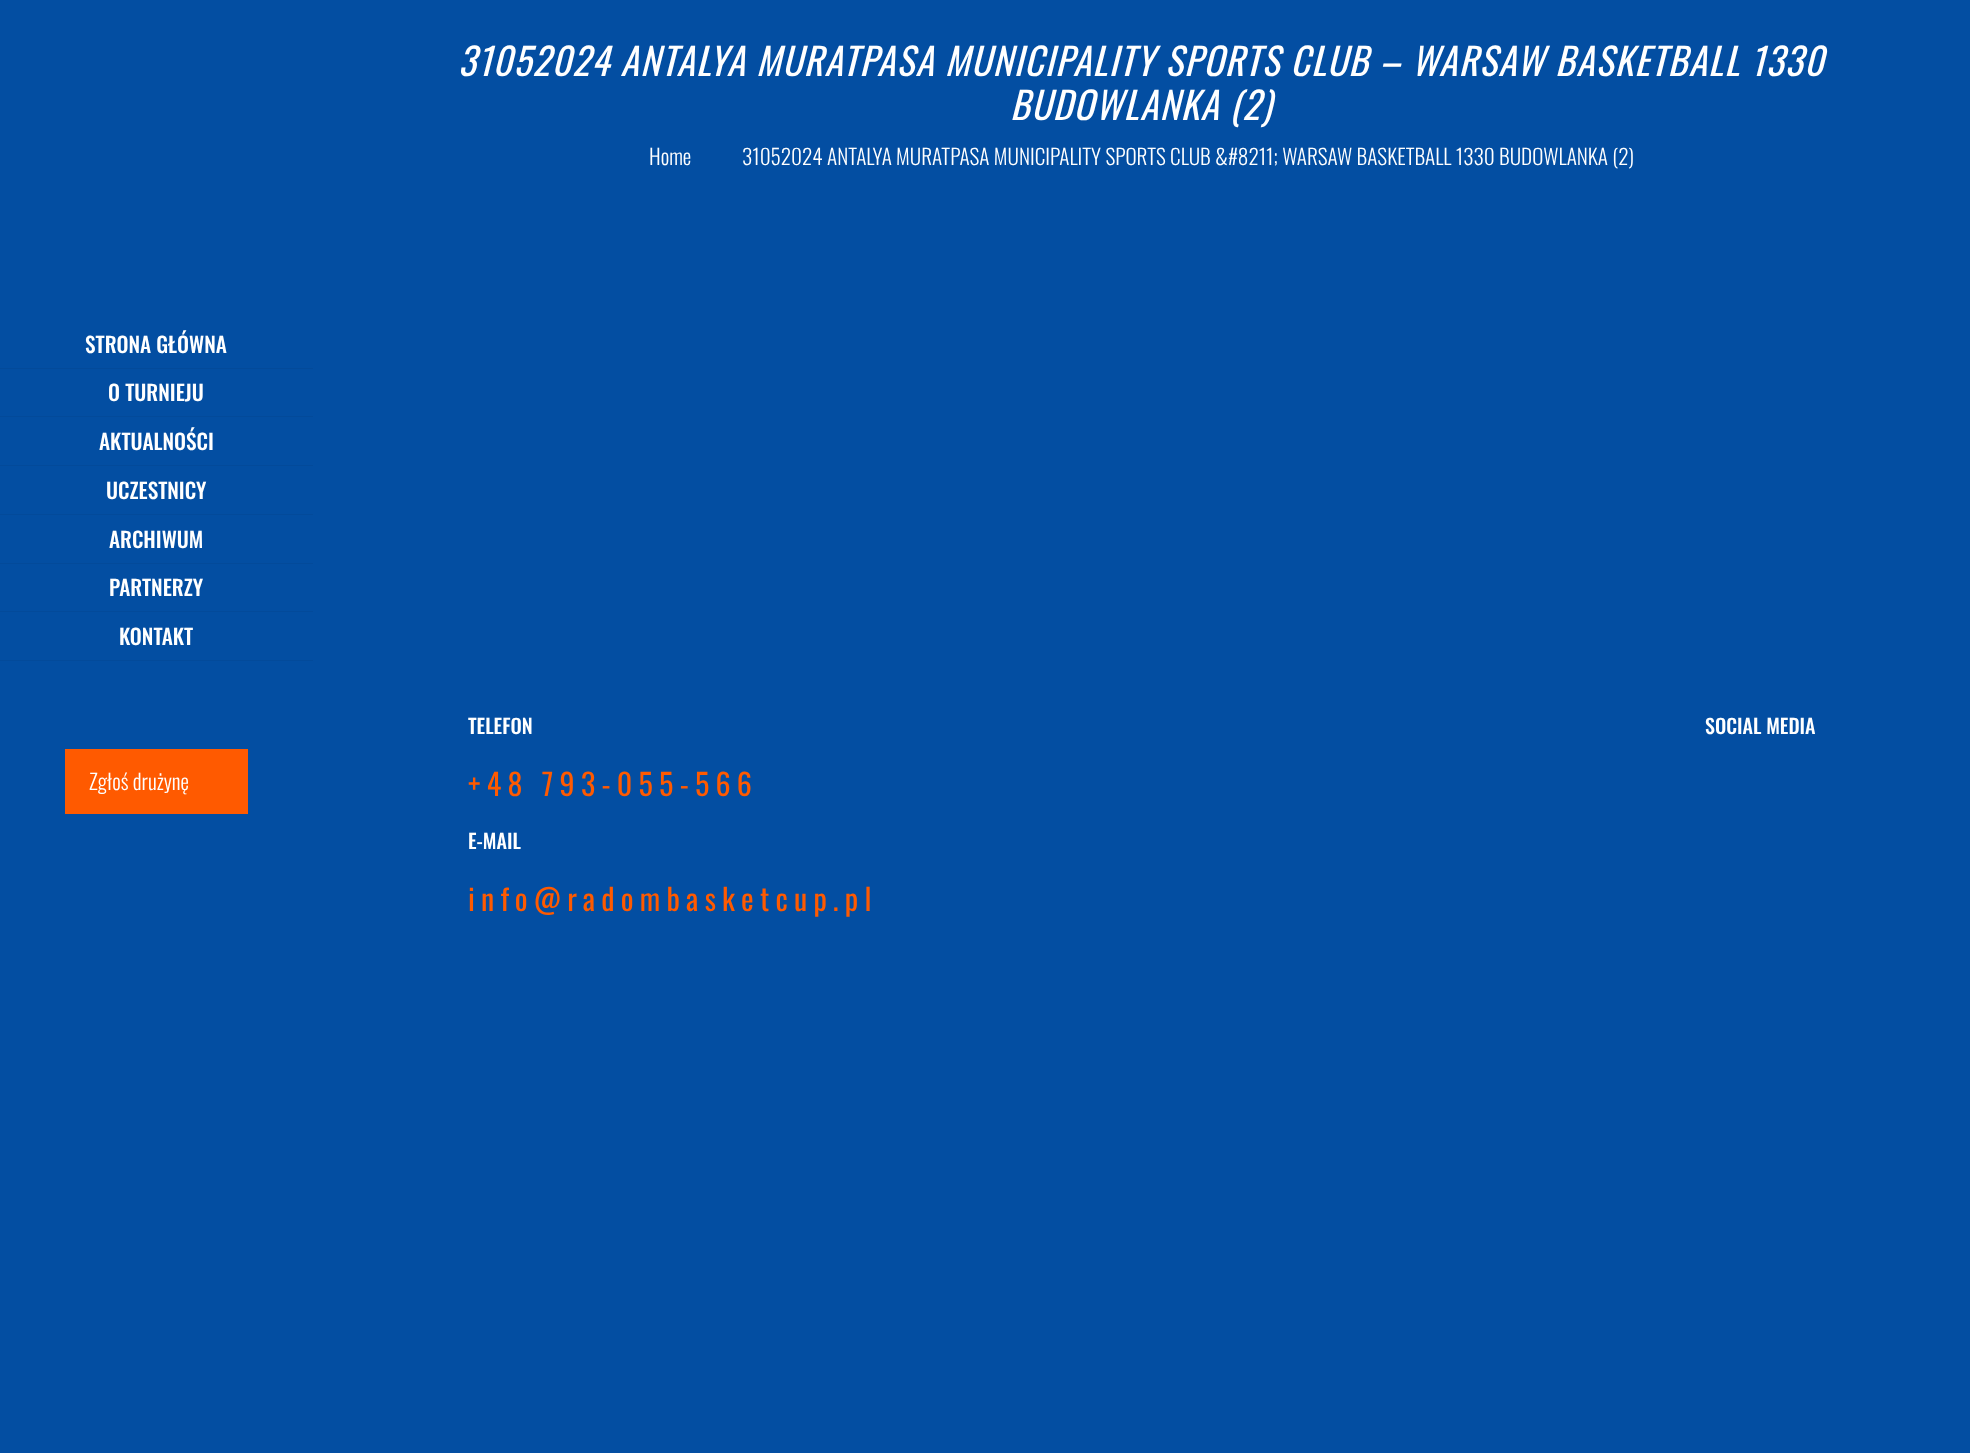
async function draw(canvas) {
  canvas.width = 1970
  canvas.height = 1453
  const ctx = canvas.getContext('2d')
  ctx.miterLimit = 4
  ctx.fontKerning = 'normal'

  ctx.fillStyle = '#034ea2'
  ctx.fillRect(0, 0, 1970, 1453)
  ctx.fillStyle = '#034a9a'
  ctx.fillRect(0, 368, 313, 1)
  ctx.font = '500 21.25px Oswald'
  ctx.fillStyle = '#fff'
  ctx.fillText('STRONA GŁÓWNA', 85, 353)
  ctx.fillStyle = '#034a9a'
  ctx.fillRect(0, 416, 313, 1)
  ctx.fillStyle = '#fff'
  ctx.fillText('O TURNIEJU', 108, 401)
  ctx.fillStyle = '#034a9a'
  ctx.fillRect(0, 465, 313, 1)
  ctx.fillStyle = '#fff'
  ctx.fillText('AKTUALNOŚCI', 99, 450)
  ctx.fillStyle = '#034a9a'
  ctx.fillRect(0, 514, 313, 1)
  ctx.fillStyle = '#fff'
  ctx.fillText('UCZESTNICY', 106, 499)
  ctx.fillStyle = '#034a9a'
  ctx.fillRect(0, 563, 313, 1)
  ctx.fillStyle = '#fff'
  ctx.fillText('ARCHIWUM', 109, 548)
  ctx.fillStyle = '#034a9a'
  ctx.fillRect(0, 611, 313, 1)
  ctx.fillStyle = '#fff'
  ctx.fillText('PARTNERZY', 109, 596)
  ctx.fillStyle = '#034a9a'
  ctx.fillRect(0, 660, 313, 1)
  ctx.fillStyle = '#fff'
  ctx.fillText('KONTAKT', 119, 645)
  ctx.fillStyle = '#ff5a00'
  ctx.fillRect(65, 749, 183, 65)
  ctx.font = '300 21.25px Oswald'
  ctx.fillStyle = '#fff'
  ctx.fillText('Zgłoś drużynę', 89, 790)
  ctx.letterSpacing = '1.25px'
  ctx.font = 'italic 37.5px Oswald'
  ctx.fillText('31052024 ANTALYA MURATPASA MUNICIPALITY SPORTS CLUB – WARSAW BASKETBALL 1330', 458, 76)
  ctx.fillText('BUDOWLANKA (2)', 1010, 120)
  ctx.letterSpacing = '0px'
  ctx.font = '300 21.25px Oswald'
  ctx.fillText('Home', 649, 165)
  ctx.fillText('31052024 ANTALYA MURATPASA MUNICIPALITY SPORTS CLUB &#8211; WARSAW BASKETBALL 1330 BUDOWLANKA (2)', 742, 165)
  ctx.font = '500 20px Oswald'
  ctx.fillText('TELEFON', 468, 734)
  ctx.letterSpacing = '6.25px'
  ctx.font = '30px Oswald'
  ctx.fillStyle = '#ff5a00'
  ctx.fillText('+48 793-055-566', 468, 796)
  ctx.letterSpacing = '0px'
  ctx.font = '500 20px Oswald'
  ctx.fillStyle = '#fff'
  ctx.fillText('E-MAIL', 468, 849)
  ctx.letterSpacing = '6.25px'
  ctx.font = '30px Oswald'
  ctx.fillStyle = '#ff5a00'
  ctx.fillText('info@radombasketcup.pl', 468, 911)
  ctx.letterSpacing = '0px'
  ctx.font = '500 20px Oswald'
  ctx.fillStyle = '#fff'
  ctx.fillText('SOCIAL MEDIA', 1705, 734)
}

draw(document.querySelector('canvas'))
